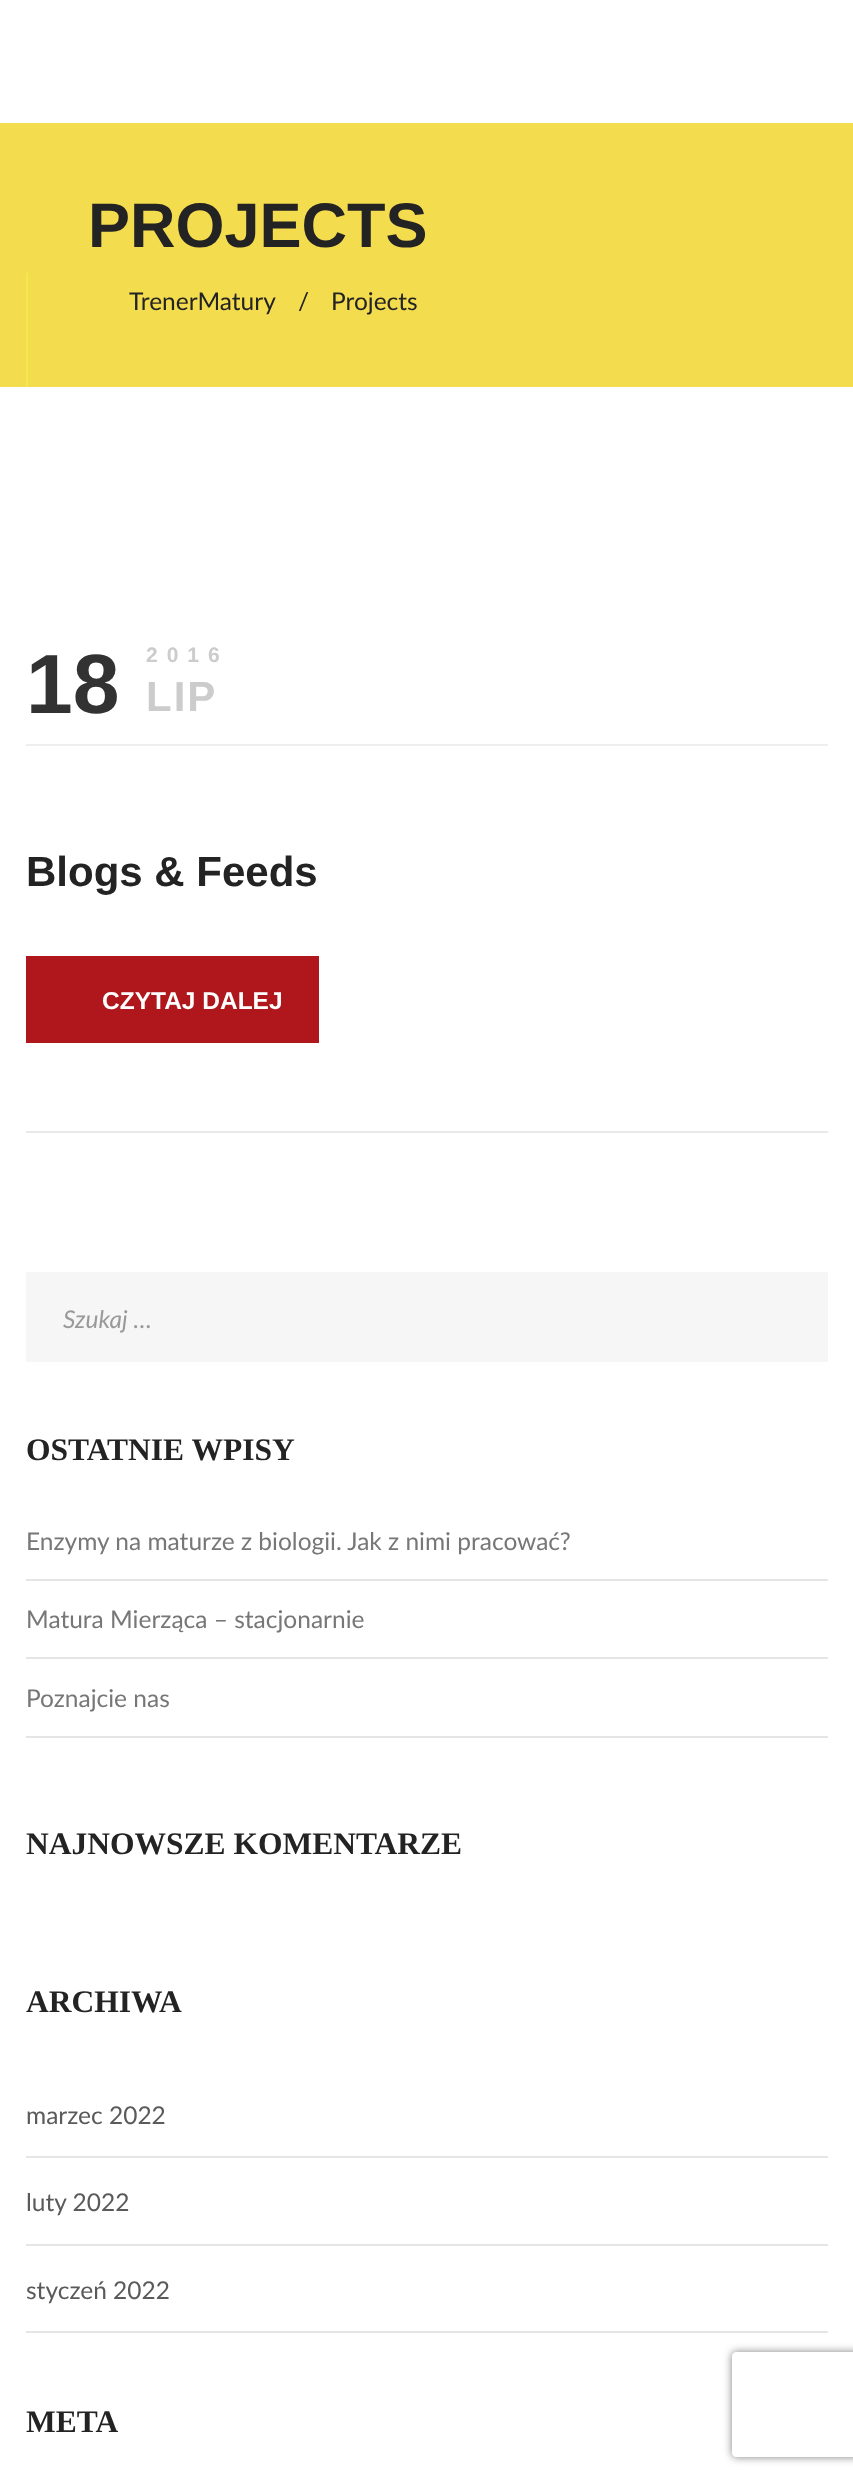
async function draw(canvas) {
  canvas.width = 853
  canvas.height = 2480
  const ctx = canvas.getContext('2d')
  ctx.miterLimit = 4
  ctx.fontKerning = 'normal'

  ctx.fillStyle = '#fff'
  ctx.fillRect(0, 0, 853, 2480)
  ctx.fillStyle = '#f4dc4f'
  ctx.fillRect(0, 123, 853, 264)
  ctx.font = 'bold 63px Liberation Sans'
  ctx.fillStyle = '#232323'
  ctx.fillText('PROJECTS', 88, 247)
  ctx.fillStyle = '#f4e94c'
  ctx.fillRect(26, 273, 2, 114)
  ctx.font = '24.5px Lato'
  ctx.fillStyle = '#232323'
  ctx.fillText('TrenerMatury', 129, 310)
  ctx.fillText('/', 298, 310)
  ctx.fillText('Projects', 331, 310)
  ctx.font = 'bold 84px Liberation Sans'
  ctx.fillStyle = '#323232'
  ctx.fillText('18', 26, 713)
  ctx.letterSpacing = '9px'
  ctx.font = 'bold 21px Liberation Sans'
  ctx.fillStyle = '#ccc'
  ctx.fillText('2016', 146, 662)
  ctx.letterSpacing = '2px'
  ctx.font = 'bold 42px Liberation Sans'
  ctx.fillText('LIP', 146, 711)
  ctx.fillStyle = '#eee'
  ctx.fillRect(26, 744, 802, 2)
  ctx.fillStyle = '#e9e9e9'
  ctx.fillRect(26, 1131, 802, 2)
  ctx.letterSpacing = '0px'
  ctx.fillStyle = '#232323'
  ctx.fillText('Blogs & Feeds', 26, 886)
  ctx.fillStyle = '#af171d'
  ctx.fillRect(26, 956, 293, 87)
  ctx.font = 'bold 24.5px Liberation Sans'
  ctx.fillStyle = '#fff'
  ctx.fillText('CZYTAJ DALEJ', 102, 1009)
  ctx.fillStyle = '#f6f6f6'
  ctx.fillRect(26, 1272, 802, 90)
  ctx.font = 'italic 24.5px Lato'
  ctx.fillStyle = '#999'
  ctx.fillText('Szukaj …', 63, 1328)
  ctx.font = 'bold 31.5px Liberation Serif'
  ctx.fillStyle = '#232323'
  ctx.fillText('OSTATNIE WPISY', 26, 1460)
  ctx.fillStyle = '#e5e5e5'
  ctx.fillRect(26, 1579, 802, 2)
  ctx.font = '24.5px Lato'
  ctx.fillStyle = '#777'
  ctx.fillText('Enzymy na maturze z biologii. Jak z nimi pracować?', 26, 1550)
  ctx.fillStyle = '#e5e5e5'
  ctx.fillRect(26, 1657, 802, 2)
  ctx.fillStyle = '#777'
  ctx.fillText('Matura Mierząca – stacjonarnie', 26, 1628)
  ctx.fillStyle = '#e5e5e5'
  ctx.fillRect(26, 1736, 802, 2)
  ctx.fillStyle = '#777'
  ctx.fillText('Poznajcie nas', 26, 1707)
  ctx.font = 'bold 31.5px Liberation Serif'
  ctx.fillStyle = '#232323'
  ctx.fillText('NAJNOWSZE KOMENTARZE', 26, 1854)
  ctx.fillText('ARCHIWA', 26, 2012)
  ctx.fillStyle = '#e5e5e5'
  ctx.fillRect(26, 2156, 802, 2)
  ctx.font = '24.5px Lato'
  ctx.fillStyle = '#5a5a5a'
  ctx.fillText('marzec 2022', 26, 2124)
  ctx.fillStyle = '#e5e5e5'
  ctx.fillRect(26, 2244, 802, 2)
  ctx.fillStyle = '#5a5a5a'
  ctx.fillText('luty 2022', 26, 2211)
  ctx.fillStyle = '#e5e5e5'
  ctx.fillRect(26, 2331, 802, 2)
  ctx.fillStyle = '#5a5a5a'
  ctx.fillText('styczeń 2022', 26, 2299)
  ctx.font = 'bold 31.5px Liberation Serif'
  ctx.fillStyle = '#232323'
  ctx.fillText('META', 26, 2432)
  ctx.save()
  ctx.beginPath()
  ctx.moveTo(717, 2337)
  ctx.lineTo(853, 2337)
  ctx.lineTo(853, 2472)
  ctx.lineTo(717, 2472)
  ctx.closePath()
  ctx.moveTo(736, 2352)
  ctx.lineTo(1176, 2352)
  ctx.bezierCurveTo(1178, 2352, 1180, 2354, 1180, 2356)
  ctx.lineTo(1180, 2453)
  ctx.bezierCurveTo(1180, 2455, 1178, 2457, 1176, 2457)
  ctx.lineTo(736, 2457)
  ctx.bezierCurveTo(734, 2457, 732, 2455, 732, 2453)
  ctx.lineTo(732, 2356)
  ctx.bezierCurveTo(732, 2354, 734, 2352, 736, 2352)
  ctx.closePath()
  ctx.clip('evenodd')
  ctx.fillStyle = '#808080'
  ctx.filter = 'blur(4.5px)'
  ctx.beginPath()
  ctx.roundRect(732, 2352, 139, 105, 4)
  ctx.fill()
  ctx.filter = 'none'
  ctx.restore()
}

draw(document.querySelector('canvas'))
